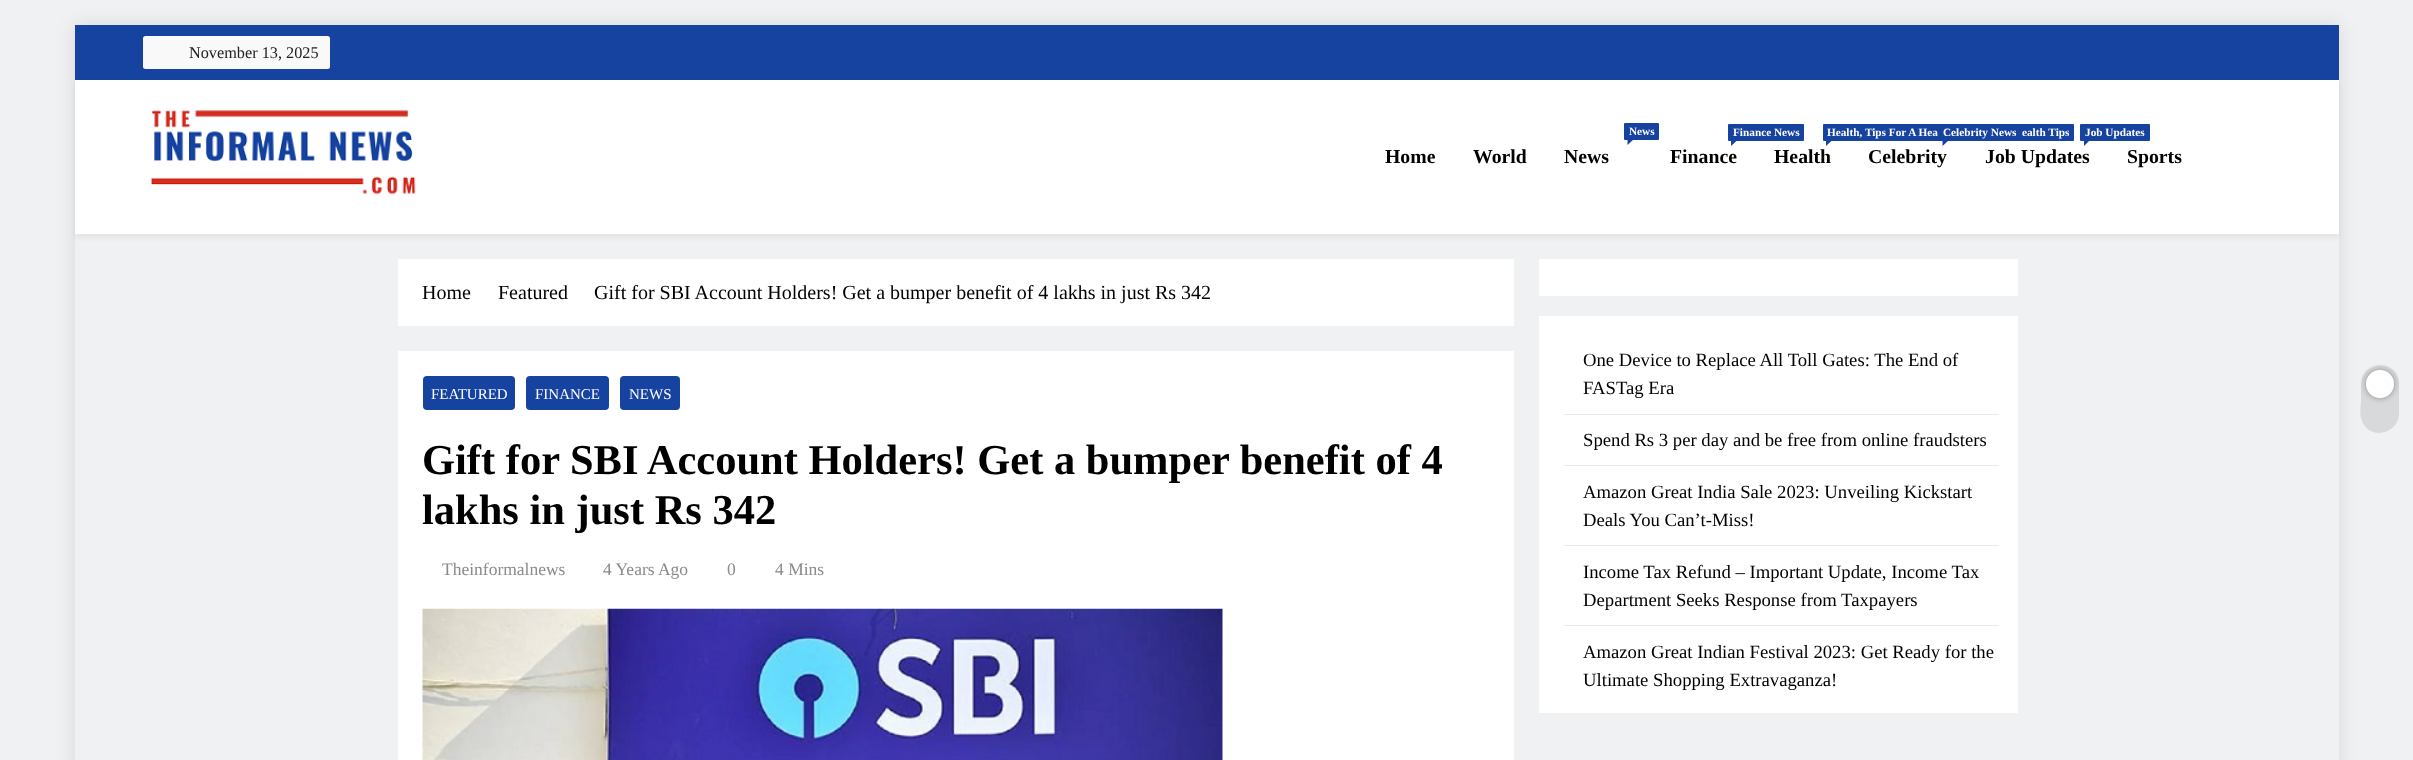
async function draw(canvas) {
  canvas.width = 2413
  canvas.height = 760
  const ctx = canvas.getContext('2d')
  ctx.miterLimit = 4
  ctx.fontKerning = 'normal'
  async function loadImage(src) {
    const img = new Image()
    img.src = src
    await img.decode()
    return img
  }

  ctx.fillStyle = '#f0f1f2'
  ctx.fillRect(0, 0, 2413, 760)
  ctx.save()
  ctx.beginPath()
  ctx.moveTo(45, 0)
  ctx.lineTo(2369, 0)
  ctx.lineTo(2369, 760)
  ctx.lineTo(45, 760)
  ctx.closePath()
  ctx.moveTo(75, 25)
  ctx.lineTo(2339, 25)
  ctx.lineTo(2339, 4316)
  ctx.lineTo(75, 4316)
  ctx.closePath()
  ctx.clip('evenodd')
  ctx.fillStyle = '#0000001a'
  ctx.filter = 'blur(9.5px)'
  ctx.beginPath()
  ctx.rect(75, 25, 2264, 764)
  ctx.fill()
  ctx.filter = 'none'
  ctx.restore()
  ctx.fillStyle = '#1643a0'
  ctx.fillRect(75, 25, 2264, 55)
  ctx.fillStyle = '#f9f9f9'
  ctx.beginPath()
  ctx.roundRect(143, 36, 187, 33, 2.5)
  ctx.fill()
  ctx.font = '16.25px Liberation Serif'
  ctx.fillStyle = '#222'
  ctx.fillText('November 13, 2025', 189, 58)
  ctx.fillStyle = '#0000000d'
  ctx.filter = 'blur(2.5px)'
  ctx.beginPath()
  ctx.rect(75, 84, 2264, 154)
  ctx.fill()
  ctx.filter = 'none'
  ctx.fillStyle = '#fff'
  ctx.fillRect(75, 80, 2264, 154)
  ctx.drawImage(await loadImage('image0.png'), 150, 110, 266, 85)
  ctx.fillStyle = '#1643a0'
  ctx.beginPath()
  ctx.roundRect(1624, 123, 35, 17, 1)
  ctx.fill()
  ctx.font = 'bold 11.25px Liberation Serif'
  ctx.fillStyle = '#fff'
  ctx.fillText('News', 1629, 135)
  ctx.fillStyle = '#1643a0'
  ctx.beginPath()
  ctx.moveTo(1627.5, 139)
  ctx.lineTo(1634, 139)
  ctx.lineTo(1627.5, 145)
  ctx.closePath()
  ctx.fill()
  ctx.font = 'bold 19.75px Liberation Serif'
  ctx.fillStyle = '#000'
  ctx.fillText('News', 1564, 163)
  ctx.fillStyle = '#1643a0'
  ctx.beginPath()
  ctx.roundRect(1728, 124, 76, 17, 1)
  ctx.fill()
  ctx.font = 'bold 11.25px Liberation Serif'
  ctx.fillStyle = '#fff'
  ctx.fillText('Finance News', 1733, 136)
  ctx.fillStyle = '#1643a0'
  ctx.beginPath()
  ctx.moveTo(1731, 140)
  ctx.lineTo(1737.5, 140)
  ctx.lineTo(1731, 146)
  ctx.closePath()
  ctx.fill()
  ctx.font = 'bold 19.75px Liberation Serif'
  ctx.fillStyle = '#000'
  ctx.fillText('Finance', 1670, 163)
  ctx.fillStyle = '#1643a0'
  ctx.beginPath()
  ctx.roundRect(1823, 124, 251, 17, 1)
  ctx.fill()
  ctx.font = 'bold 11.25px Liberation Serif'
  ctx.fillStyle = '#fff'
  ctx.fillText('Health, Tips For A Hea', 1827, 136)
  ctx.fillText('ealth Tips', 2022, 136)
  ctx.fillStyle = '#1643a0'
  ctx.beginPath()
  ctx.moveTo(1826, 140)
  ctx.lineTo(1832.5, 140)
  ctx.lineTo(1826, 146)
  ctx.closePath()
  ctx.fill()
  ctx.font = 'bold 19.75px Liberation Serif'
  ctx.fillStyle = '#000'
  ctx.fillText('Health', 1774, 163)
  ctx.fillText('Home', 1385, 163)
  ctx.fillText('World', 1473, 163)
  ctx.font = 'bold 11.25px Liberation Serif'
  ctx.fillStyle = '#fff'
  ctx.fillText('Celebrity News', 1943, 136)
  ctx.fillStyle = '#1643a0'
  ctx.beginPath()
  ctx.moveTo(1942.5, 140)
  ctx.lineTo(1949, 140)
  ctx.lineTo(1942.5, 146)
  ctx.closePath()
  ctx.fill()
  ctx.font = 'bold 19.75px Liberation Serif'
  ctx.fillStyle = '#000'
  ctx.fillText('Celebrity', 1868, 163)
  ctx.fillStyle = '#1643a0'
  ctx.beginPath()
  ctx.roundRect(2080, 124, 70, 17, 1)
  ctx.fill()
  ctx.font = 'bold 11.25px Liberation Serif'
  ctx.fillStyle = '#fff'
  ctx.fillText('Job Updates', 2085, 136)
  ctx.fillStyle = '#1643a0'
  ctx.beginPath()
  ctx.moveTo(2084, 140)
  ctx.lineTo(2090, 140)
  ctx.lineTo(2084, 146)
  ctx.closePath()
  ctx.fill()
  ctx.font = 'bold 19.75px Liberation Serif'
  ctx.fillStyle = '#000'
  ctx.fillText('Job Updates', 1985, 163)
  ctx.fillText('Sports', 2127, 163)
  ctx.fillStyle = '#d8d9da'
  ctx.beginPath()
  ctx.moveTo(2399, 384)
  ctx.lineTo(2399, 414)
  ctx.bezierCurveTo(2398, 434, 2370, 441, 2362, 421)
  ctx.bezierCurveTo(2359, 415, 2361, 406, 2361, 399)
  ctx.lineTo(2361, 384)
  ctx.bezierCurveTo(2362, 359, 2399, 359, 2399, 384)
  ctx.closePath()
  ctx.fill()
  ctx.fillStyle = '#00000059'
  ctx.filter = 'blur(3px)'
  ctx.beginPath()
  ctx.roundRect(2366, 370, 28, 28, 14)
  ctx.fill()
  ctx.filter = 'none'
  ctx.fillStyle = '#fff'
  ctx.beginPath()
  ctx.arc(2380, 384, 14, 0, 2 * Math.PI)
  ctx.fill()
  ctx.fillRect(398, 259, 1116, 67)
  ctx.font = '20px Liberation Serif'
  ctx.fillStyle = '#000'
  ctx.fillText('Home', 422, 299)
  ctx.fillText('Featured', 498, 299)
  ctx.fillText('Gift for SBI Account Holders! Get a bumper benefit of 4 lakhs in just Rs 342', 594, 299)
  ctx.fillStyle = '#fff'
  ctx.fillRect(398, 351, 1116, 409)
  ctx.fillStyle = '#1643a0'
  ctx.beginPath()
  ctx.roundRect(423, 376, 92, 34, 4)
  ctx.fill()
  ctx.font = '15px Liberation Serif'
  ctx.fillStyle = '#fff'
  ctx.fillText('FEATURED', 431, 399)
  ctx.fillStyle = '#1643a0'
  ctx.beginPath()
  ctx.roundRect(526, 376, 83, 34, 4)
  ctx.fill()
  ctx.fillStyle = '#fff'
  ctx.fillText('FINANCE', 535, 399)
  ctx.fillStyle = '#1643a0'
  ctx.beginPath()
  ctx.roundRect(620, 376, 60, 34, 4)
  ctx.fill()
  ctx.fillStyle = '#fff'
  ctx.fillText('NEWS', 629, 399)
  ctx.font = 'bold 42.5px Liberation Serif'
  ctx.fillStyle = '#000'
  ctx.fillText('Gift for SBI Account Holders! Get a bumper benefit of 4', 422, 474)
  ctx.fillText('lakhs in just Rs 342', 422, 524)
  ctx.font = '17.5px Liberation Serif'
  ctx.fillStyle = '#8a8a8c'
  ctx.fillText('Theinformalnews', 442, 575)
  ctx.fillText('4 Years Ago', 603, 575)
  ctx.fillText('0', 727, 575)
  ctx.fillText('4 Mins', 775, 575)
  ctx.drawImage(await loadImage('image1.png'), 422, 608, 801, 152)
  ctx.fillStyle = '#fff'
  ctx.fillRect(1539, 259, 479, 37)
  ctx.fillRect(1539, 316, 479, 397)
  ctx.fillStyle = '#eaeaea'
  ctx.fillRect(1564, 414, 435, 1)
  ctx.font = '18.7px Liberation Serif'
  ctx.fillStyle = '#000'
  ctx.fillText('One Device to Replace All Toll Gates: The End of', 1583, 366)
  ctx.fillText('FASTag Era', 1583, 394)
  ctx.fillStyle = '#eaeaea'
  ctx.fillRect(1564, 465, 435, 1)
  ctx.fillStyle = '#000'
  ctx.fillText('Spend Rs 3 per day and be free from online fraudsters', 1583, 446)
  ctx.fillStyle = '#eaeaea'
  ctx.fillRect(1564, 545, 435, 1)
  ctx.fillStyle = '#000'
  ctx.fillText('Amazon Great India Sale 2023: Unveiling Kickstart', 1583, 498)
  ctx.fillText('Deals You Can’t-Miss!', 1583, 526)
  ctx.fillStyle = '#eaeaea'
  ctx.fillRect(1564, 625, 435, 1)
  ctx.fillStyle = '#000'
  ctx.fillText('Income Tax Refund – Important Update, Income Tax', 1583, 578)
  ctx.fillText('Department Seeks Response from Taxpayers', 1583, 606)
  ctx.fillText('Amazon Great Indian Festival 2023: Get Ready for the', 1583, 658)
  ctx.fillText('Ultimate Shopping Extravaganza!', 1583, 686)
}

draw(document.querySelector('canvas'))
